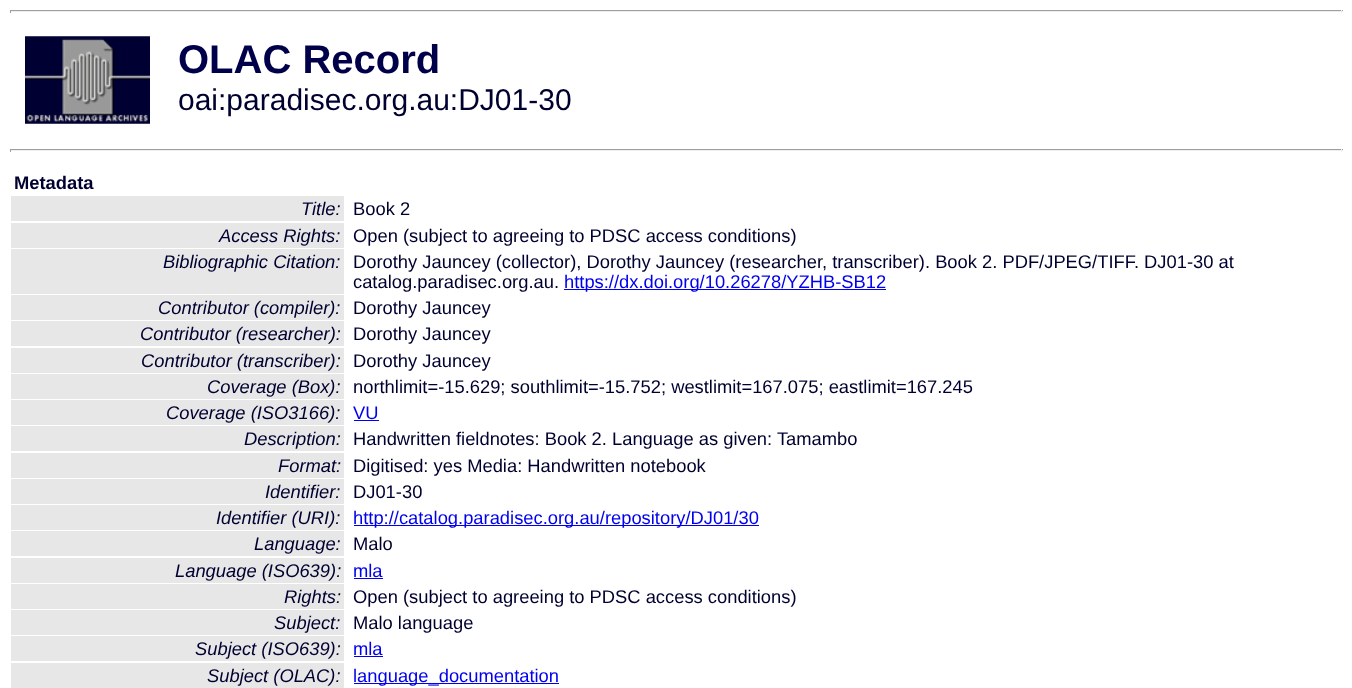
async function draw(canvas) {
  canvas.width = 1352
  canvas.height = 688
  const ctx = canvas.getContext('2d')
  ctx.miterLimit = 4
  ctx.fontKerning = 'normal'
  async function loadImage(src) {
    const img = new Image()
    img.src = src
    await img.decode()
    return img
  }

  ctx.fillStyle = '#fff'
  ctx.fillRect(0, 0, 1352, 688)
  ctx.fillStyle = '#9f9f9f'
  ctx.fillRect(10, 10, 1333, 1)
  ctx.fillStyle = '#eee'
  ctx.fillRect(1341, 10, 1, 3)
  ctx.fillRect(10, 11, 1333, 1)
  ctx.fillStyle = '#9f9f9f'
  ctx.fillRect(10, 10, 1, 3)
  ctx.drawImage(await loadImage('image0.png'), 25, 36, 125, 88)
  ctx.font = 'bold 40px Liberation Sans'
  ctx.fillStyle = '#00004a'
  ctx.fillText('OLAC Record', 178, 73)
  ctx.font = '30px Liberation Sans'
  ctx.fillStyle = '#000030'
  ctx.fillText('oai:paradisec.org.au:DJ01-30', 178, 110)
  ctx.fillStyle = '#9f9f9f'
  ctx.fillRect(10, 149, 1333, 1)
  ctx.fillStyle = '#eee'
  ctx.fillRect(1341, 149, 1, 3)
  ctx.fillRect(10, 150, 1333, 1)
  ctx.fillStyle = '#9f9f9f'
  ctx.fillRect(10, 149, 1, 3)
  ctx.font = 'bold 18.35px Liberation Sans'
  ctx.fillStyle = '#000030'
  ctx.fillText('Metadata', 14, 189)
  ctx.fillStyle = '#e7e7e7'
  ctx.fillRect(11, 196, 333, 25)
  ctx.font = 'italic 18.35px Liberation Sans'
  ctx.fillStyle = '#000030'
  ctx.fillText('Title:', 301, 215)
  ctx.font = '18.35px Liberation Sans'
  ctx.fillText('Book 2', 353, 215)
  ctx.fillStyle = '#e7e7e7'
  ctx.fillRect(11, 223, 333, 25)
  ctx.font = 'italic 18.35px Liberation Sans'
  ctx.fillStyle = '#000030'
  ctx.fillText('Access Rights:', 219, 242)
  ctx.font = '18.35px Liberation Sans'
  ctx.fillText('Open (subject to agreeing to PDSC access conditions)', 353, 242)
  ctx.fillStyle = '#e7e7e7'
  ctx.fillRect(11, 249, 333, 45)
  ctx.font = 'italic 18.35px Liberation Sans'
  ctx.fillStyle = '#000030'
  ctx.fillText('Bibliographic Citation:', 163, 268)
  ctx.font = '18.35px Liberation Sans'
  ctx.fillText('Dorothy Jauncey (collector), Dorothy Jauncey (researcher, transcriber). Book 2. PDF/JPEG/TIFF. DJ01-30 at', 353, 268)
  ctx.fillText('catalog.paradisec.org.au.', 353, 288)
  ctx.fillStyle = '#00e'
  ctx.fillRect(564, 289, 322, 1)
  ctx.fillText('https://dx.doi.org/10.26278/YZHB-SB12', 564, 288)
  ctx.fillStyle = '#e7e7e7'
  ctx.fillRect(11, 295, 333, 25)
  ctx.font = 'italic 18.35px Liberation Sans'
  ctx.fillStyle = '#000030'
  ctx.fillText('Contributor (compiler):', 158, 314)
  ctx.font = '18.35px Liberation Sans'
  ctx.fillText('Dorothy Jauncey', 353, 314)
  ctx.fillStyle = '#e7e7e7'
  ctx.fillRect(11, 321, 333, 25)
  ctx.font = 'italic 18.35px Liberation Sans'
  ctx.fillStyle = '#000030'
  ctx.fillText('Contributor (researcher):', 140, 340)
  ctx.font = '18.35px Liberation Sans'
  ctx.fillText('Dorothy Jauncey', 353, 340)
  ctx.fillStyle = '#e7e7e7'
  ctx.fillRect(11, 348, 333, 25)
  ctx.font = 'italic 18.35px Liberation Sans'
  ctx.fillStyle = '#000030'
  ctx.fillText('Contributor (transcriber):', 141, 367)
  ctx.font = '18.35px Liberation Sans'
  ctx.fillText('Dorothy Jauncey', 353, 367)
  ctx.fillStyle = '#e7e7e7'
  ctx.fillRect(11, 374, 333, 25)
  ctx.font = 'italic 18.35px Liberation Sans'
  ctx.fillStyle = '#000030'
  ctx.fillText('Coverage (Box):', 207, 393)
  ctx.font = '18.35px Liberation Sans'
  ctx.fillText('northlimit=-15.629; southlimit=-15.752; westlimit=167.075; eastlimit=167.245', 353, 393)
  ctx.fillStyle = '#e7e7e7'
  ctx.fillRect(11, 400, 333, 25)
  ctx.font = 'italic 18.35px Liberation Sans'
  ctx.fillStyle = '#000030'
  ctx.fillText('Coverage (ISO3166):', 166, 419)
  ctx.font = '18.35px Liberation Sans'
  ctx.fillStyle = '#00e'
  ctx.fillText('VU', 353, 419)
  ctx.fillRect(354, 420, 25, 1)
  ctx.fillStyle = '#e7e7e7'
  ctx.fillRect(11, 426, 333, 25)
  ctx.font = 'italic 18.35px Liberation Sans'
  ctx.fillStyle = '#000030'
  ctx.fillText('Description:', 244, 445)
  ctx.font = '18.35px Liberation Sans'
  ctx.fillText('Handwritten fieldnotes: Book 2. Language as given: Tamambo', 353, 445)
  ctx.fillStyle = '#e7e7e7'
  ctx.fillRect(11, 453, 333, 25)
  ctx.font = 'italic 18.35px Liberation Sans'
  ctx.fillStyle = '#000030'
  ctx.fillText('Format:', 278, 472)
  ctx.font = '18.35px Liberation Sans'
  ctx.fillText('Digitised: yes Media: Handwritten notebook', 353, 472)
  ctx.fillStyle = '#e7e7e7'
  ctx.fillRect(11, 479, 333, 25)
  ctx.font = 'italic 18.35px Liberation Sans'
  ctx.fillStyle = '#000030'
  ctx.fillText('Identifier:', 265, 498)
  ctx.font = '18.35px Liberation Sans'
  ctx.fillText('DJ01-30', 353, 498)
  ctx.fillStyle = '#e7e7e7'
  ctx.fillRect(11, 505, 333, 25)
  ctx.font = 'italic 18.35px Liberation Sans'
  ctx.fillStyle = '#000030'
  ctx.fillText('Identifier (URI):', 216, 524)
  ctx.fillStyle = '#00e'
  ctx.fillRect(354, 525, 405, 1)
  ctx.font = '18.35px Liberation Sans'
  ctx.fillText('http://catalog.paradisec.org.au/repository/DJ01/30', 353, 524)
  ctx.fillStyle = '#e7e7e7'
  ctx.fillRect(11, 531, 333, 25)
  ctx.font = 'italic 18.35px Liberation Sans'
  ctx.fillStyle = '#000030'
  ctx.fillText('Language:', 254, 550)
  ctx.font = '18.35px Liberation Sans'
  ctx.fillText('Malo', 353, 550)
  ctx.fillStyle = '#e7e7e7'
  ctx.fillRect(11, 558, 333, 25)
  ctx.font = 'italic 18.35px Liberation Sans'
  ctx.fillStyle = '#000030'
  ctx.fillText('Language (ISO639):', 175, 577)
  ctx.font = '18.35px Liberation Sans'
  ctx.fillStyle = '#00e'
  ctx.fillText('mla', 353, 577)
  ctx.fillRect(354, 578, 29, 1)
  ctx.fillStyle = '#e7e7e7'
  ctx.fillRect(11, 584, 333, 25)
  ctx.font = 'italic 18.35px Liberation Sans'
  ctx.fillStyle = '#000030'
  ctx.fillText('Rights:', 284, 603)
  ctx.font = '18.35px Liberation Sans'
  ctx.fillText('Open (subject to agreeing to PDSC access conditions)', 353, 603)
  ctx.fillStyle = '#e7e7e7'
  ctx.fillRect(11, 610, 333, 25)
  ctx.font = 'italic 18.35px Liberation Sans'
  ctx.fillStyle = '#000030'
  ctx.fillText('Subject:', 274, 629)
  ctx.font = '18.35px Liberation Sans'
  ctx.fillText('Malo language', 353, 629)
  ctx.fillStyle = '#e7e7e7'
  ctx.fillRect(11, 636, 333, 25)
  ctx.font = 'italic 18.35px Liberation Sans'
  ctx.fillStyle = '#000030'
  ctx.fillText('Subject (ISO639):', 195, 655)
  ctx.font = '18.35px Liberation Sans'
  ctx.fillStyle = '#00e'
  ctx.fillText('mla', 353, 655)
  ctx.fillRect(354, 656, 29, 1)
  ctx.fillStyle = '#e7e7e7'
  ctx.fillRect(11, 663, 333, 25)
  ctx.font = 'italic 18.35px Liberation Sans'
  ctx.fillStyle = '#000030'
  ctx.fillText('Subject (OLAC):', 207, 682)
  ctx.fillStyle = '#00e'
  ctx.fillRect(354, 683, 205, 1)
  ctx.font = '18.35px Liberation Sans'
  ctx.fillText('language_documentation', 353, 682)
}

draw(document.querySelector('canvas'))
